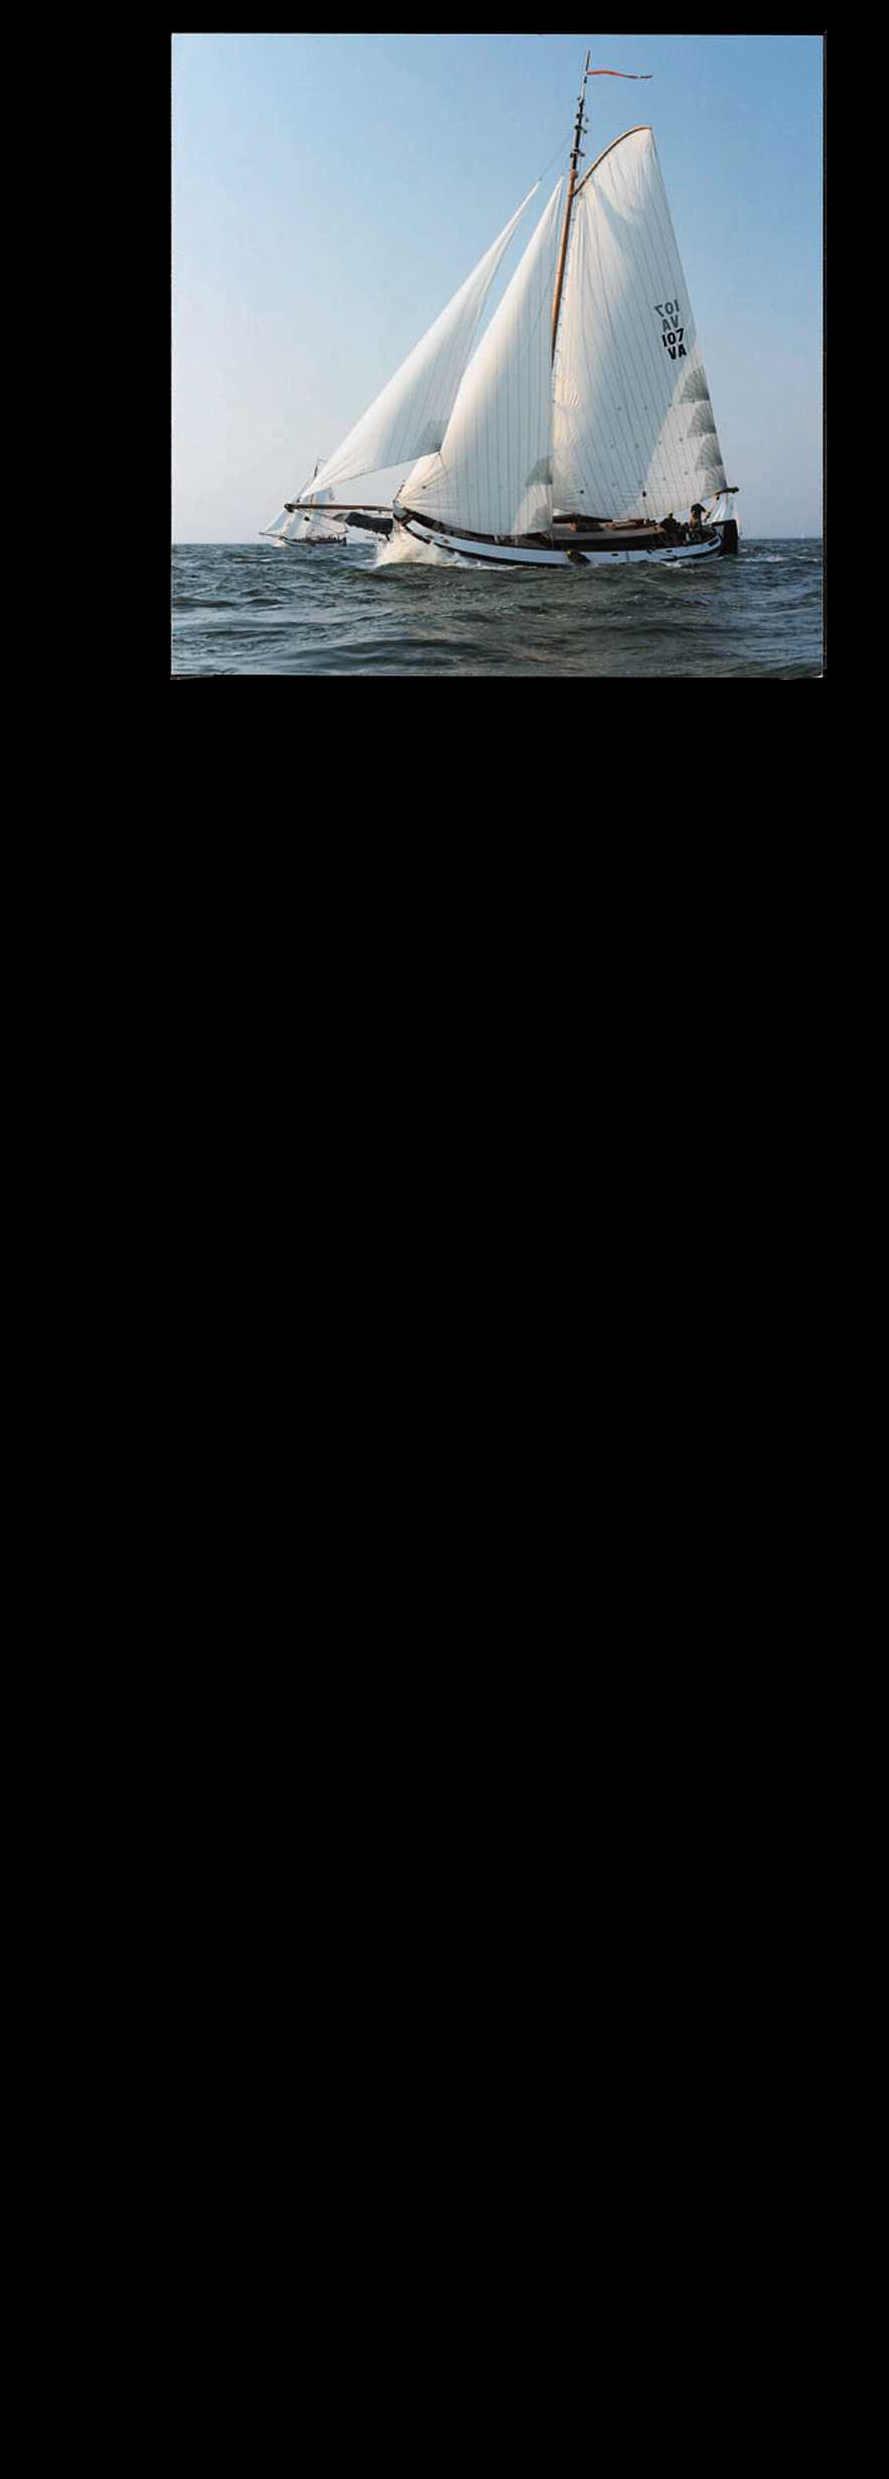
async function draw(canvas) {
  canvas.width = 889
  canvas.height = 2479
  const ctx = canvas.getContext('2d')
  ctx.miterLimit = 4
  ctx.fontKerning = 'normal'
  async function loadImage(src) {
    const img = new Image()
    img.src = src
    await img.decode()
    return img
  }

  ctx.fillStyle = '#000'
  ctx.fillRect(0, 0, 889, 2479)
  ctx.drawImage(await loadImage('image0.png'), 170, 30, 657, 650)
}

draw(document.querySelector('canvas'))
